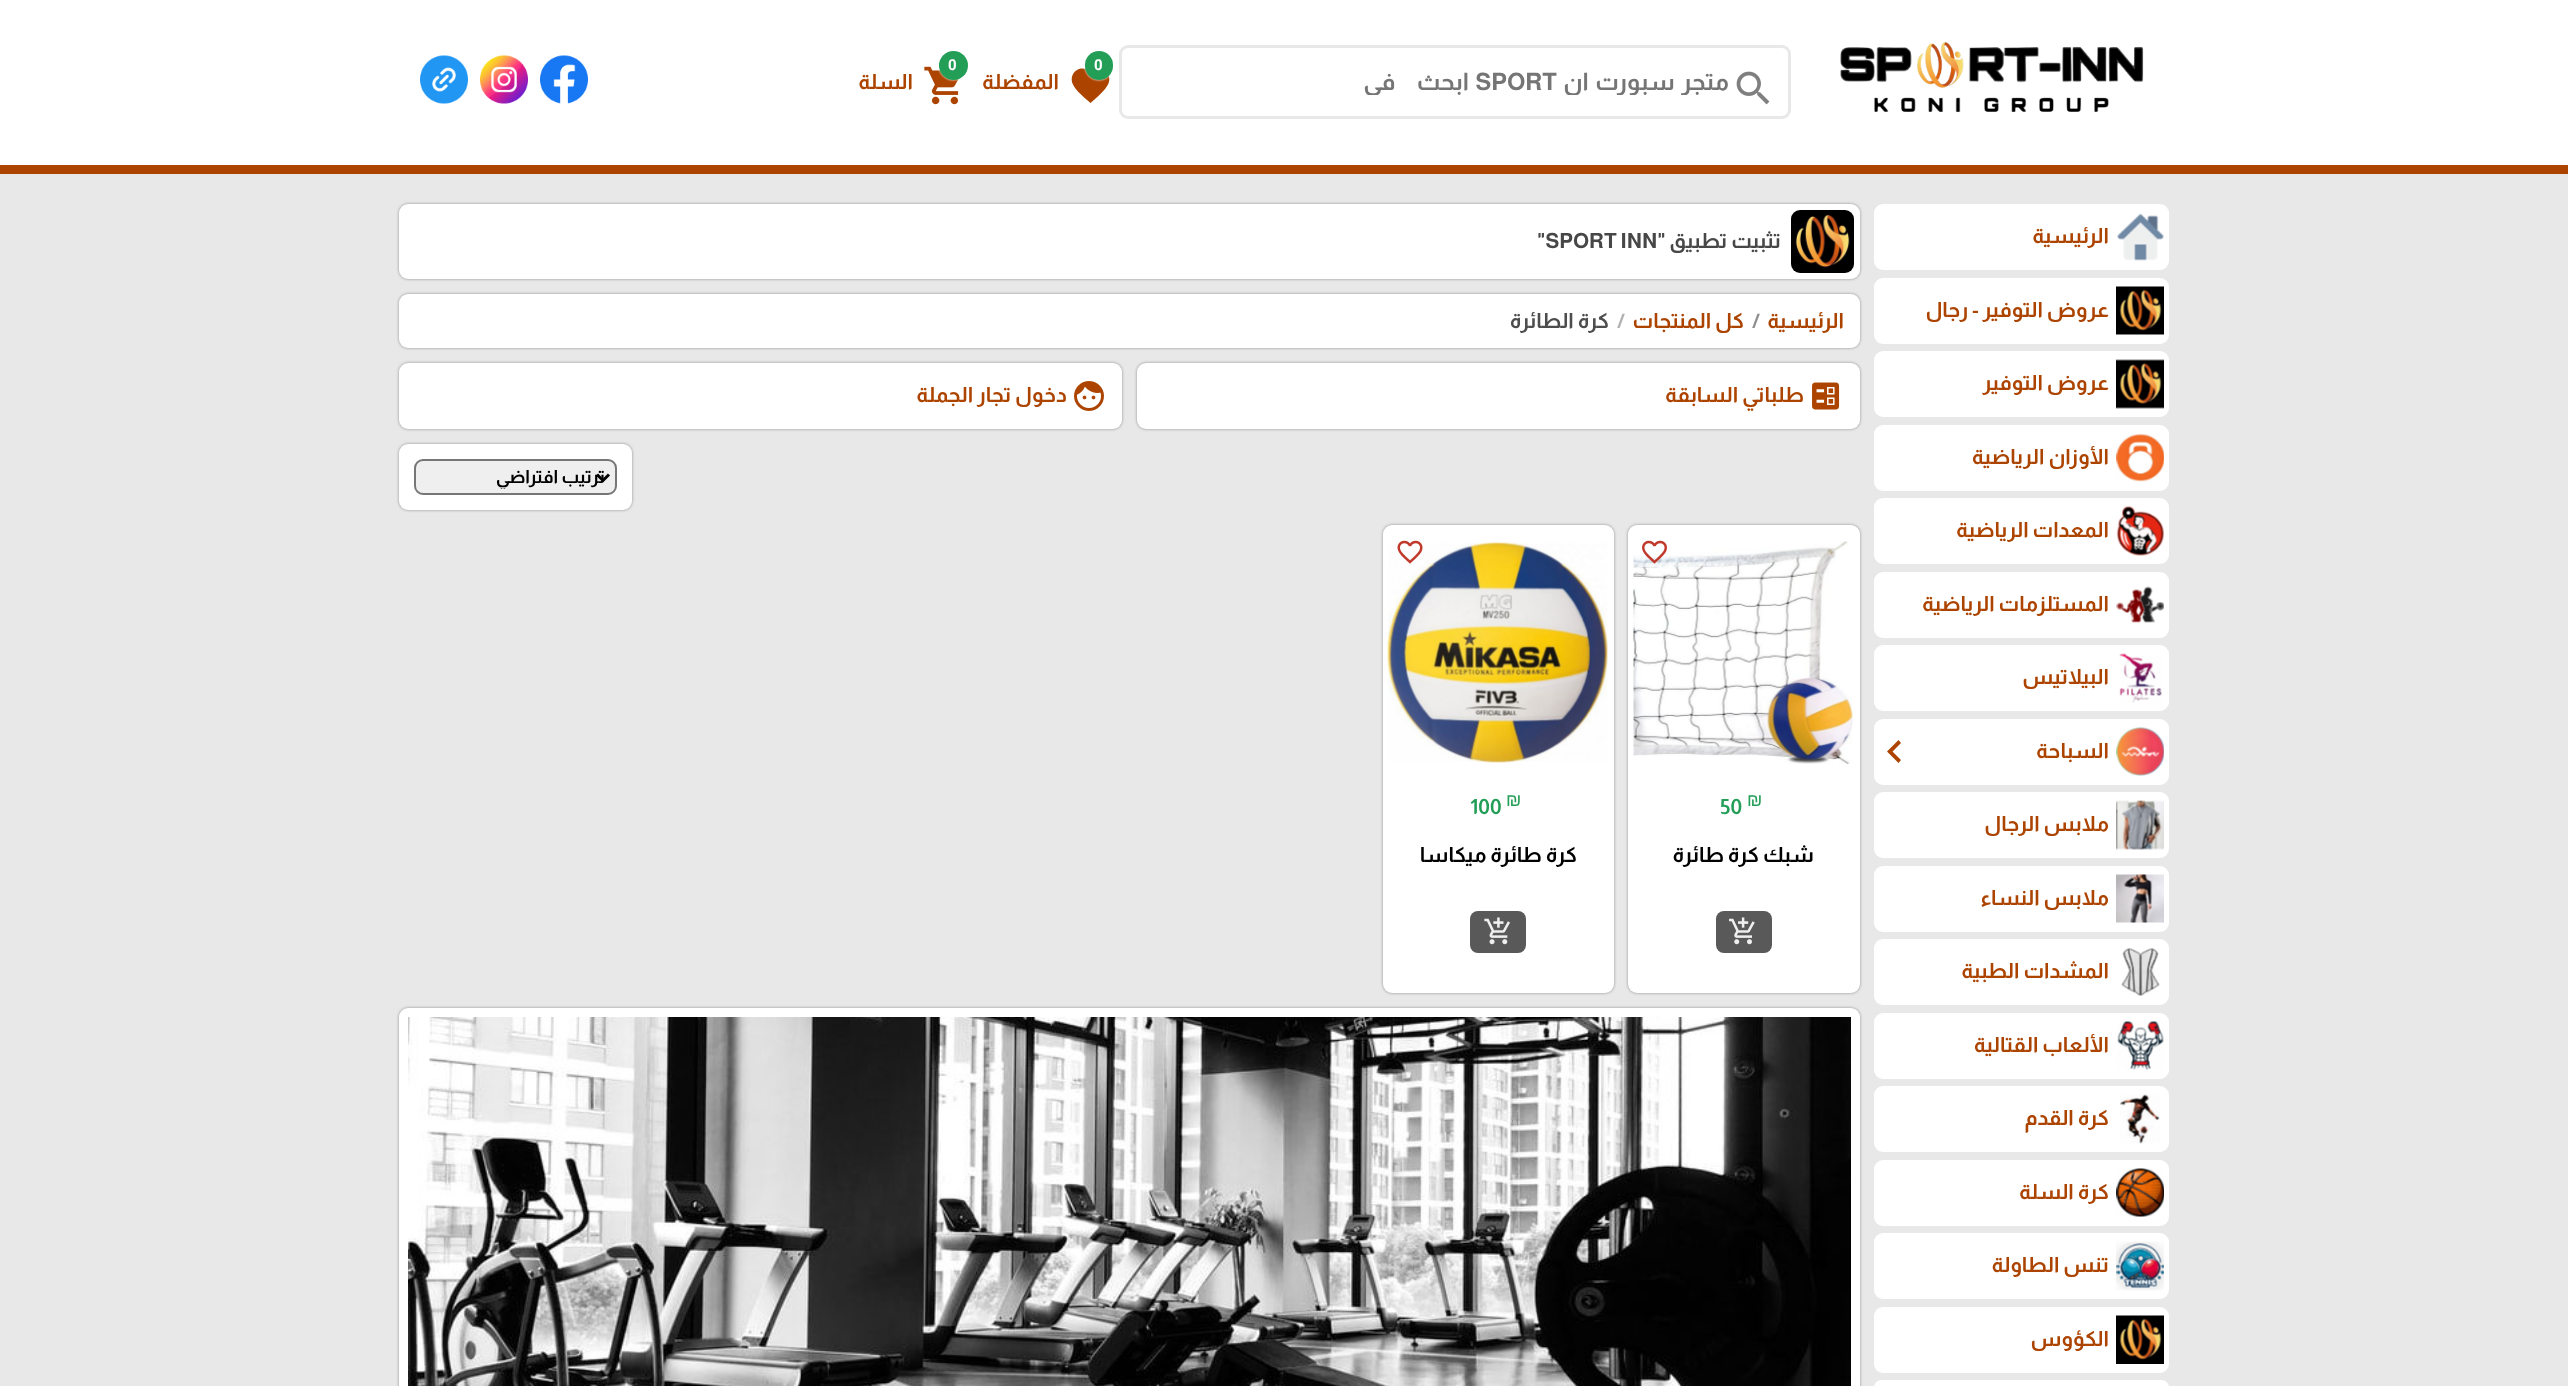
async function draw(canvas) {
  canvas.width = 2568
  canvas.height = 1386
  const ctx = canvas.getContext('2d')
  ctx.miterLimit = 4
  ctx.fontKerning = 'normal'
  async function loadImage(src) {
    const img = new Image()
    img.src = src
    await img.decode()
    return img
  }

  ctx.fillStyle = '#e8e8e8'
  ctx.fillRect(0, 0, 2568, 1386)
  ctx.fillStyle = '#ac4400'
  ctx.fillRect(0, 165, 2568, 9)
  ctx.fillStyle = '#fff'
  ctx.fillRect(0, 0, 2568, 165)
  ctx.drawImage(await loadImage('image0.png'), 1840, 41, 304, 72)
  ctx.beginPath()
  ctx.roundRect(1120.5, 46.5, 669, 71, 7.5)
  ctx.strokeStyle = '#e8e8e8'
  ctx.lineWidth = 3
  ctx.stroke()
  ctx.drawImage(await loadImage('image1.png'), 1736, 71, 34, 34)
  ctx.save()
  ctx.beginPath()
  ctx.rect(1143, 69, 585, 26)
  ctx.clip()
  ctx.wordSpacing = '2px'
  ctx.direction = 'rtl'
  ctx.font = 'bold 24px Almarai'
  ctx.fillStyle = '#757575'
  ctx.fillText('متجر سبورت ان SPORT', 1729, 90)
  ctx.wordSpacing = '17px'
  ctx.fillText('ابحث في', 1469, 90)
  ctx.restore()
  ctx.fillStyle = '#ac4400'
  ctx.beginPath()
  ctx.moveTo(1090.5, 103)
  ctx.bezierCurveTo(1085, 98, 1076, 91, 1073, 84.5)
  ctx.bezierCurveTo(1067.5, 72.5, 1082, 62.5, 1090.5, 72.5)
  ctx.bezierCurveTo(1098.5, 63, 1113, 72, 1108.5, 83.5)
  ctx.bezierCurveTo(1105, 91, 1096.5, 97.5, 1090.5, 103)
  ctx.closePath()
  ctx.fill()
  ctx.fillStyle = '#fff'
  ctx.filter = 'blur(1px)'
  ctx.beginPath()
  ctx.roundRect(1085, 51, 28, 29, 14)
  ctx.fill()
  ctx.filter = 'none'
  ctx.fillStyle = '#239e57'
  ctx.beginPath()
  ctx.roundRect(1085, 51, 28, 29, 14)
  ctx.fill()
  ctx.font = 'bold 15px Roboto'
  ctx.fillStyle = '#fff'
  ctx.fillText('0', 1094, 70)
  ctx.direction = 'rtl'
  ctx.font = 'bold 21px Almarai'
  ctx.fillStyle = '#ac4400'
  ctx.fillText('المفضلة', 1059, 89)
  ctx.drawImage(await loadImage('image2.png'), 924, 66, 35, 39)
  ctx.fillStyle = '#fff'
  ctx.filter = 'blur(1px)'
  ctx.beginPath()
  ctx.roundRect(939, 51, 29, 29, 14.5)
  ctx.fill()
  ctx.filter = 'none'
  ctx.fillStyle = '#239e57'
  ctx.beginPath()
  ctx.arc(953.5, 65.5, 14.5, 0, 2 * Math.PI)
  ctx.fill()
  ctx.direction = 'ltr'
  ctx.font = 'bold 15px Roboto'
  ctx.fillStyle = '#fff'
  ctx.fillText('0', 948, 70)
  ctx.direction = 'rtl'
  ctx.font = 'bold 21px Almarai'
  ctx.fillStyle = '#ac4400'
  ctx.fillText('السلة', 913, 89)
  ctx.drawImage(await loadImage('image3.png'), 540, 55, 48, 49)
  ctx.drawImage(await loadImage('image4.png'), 480, 55, 48, 49)
  ctx.drawImage(await loadImage('image5.png'), 420, 55, 48, 49)
  ctx.fillStyle = '#fff'
  ctx.beginPath()
  ctx.roundRect(1874, 204, 295, 66, 9)
  ctx.fill()
  ctx.drawImage(await loadImage('image6.png'), 2117, 213, 47, 48)
  ctx.fillStyle = '#ac4400'
  ctx.fillText('الرئيسية', 2109, 243)
  ctx.fillStyle = '#fff'
  ctx.beginPath()
  ctx.roundRect(1874, 278, 295, 66, 9)
  ctx.fill()
  ctx.drawImage(await loadImage('image7.png'), 2116, 286, 48, 49)
  ctx.fillStyle = '#ac4400'
  ctx.fillText('عروض التوفير - رجال', 2109, 317)
  ctx.fillStyle = '#fff'
  ctx.beginPath()
  ctx.roundRect(1874, 351, 295, 66, 9)
  ctx.fill()
  ctx.drawImage(await loadImage('image8.png'), 2116, 359, 48, 50)
  ctx.fillStyle = '#ac4400'
  ctx.fillText('عروض التوفير', 2109, 390)
  ctx.fillStyle = '#fff'
  ctx.beginPath()
  ctx.roundRect(1874, 425, 295, 66, 9)
  ctx.fill()
  ctx.drawImage(await loadImage('image9.png'), 2116, 433, 48, 49)
  ctx.fillStyle = '#ac4400'
  ctx.fillText('الأوزان الرياضية', 2109, 464)
  ctx.fillStyle = '#fff'
  ctx.beginPath()
  ctx.roundRect(1874, 498, 295, 66, 9)
  ctx.fill()
  ctx.drawImage(await loadImage('image10.png'), 2116, 506, 48, 50)
  ctx.fillStyle = '#ac4400'
  ctx.fillText('المعدات الرياضية', 2109, 537)
  ctx.fillStyle = '#fff'
  ctx.beginPath()
  ctx.roundRect(1874, 572, 295, 66, 9)
  ctx.fill()
  ctx.drawImage(await loadImage('image11.png'), 2116, 586, 48, 37)
  ctx.fillStyle = '#ac4400'
  ctx.fillText('المستلزمات الرياضية', 2109, 611)
  ctx.fillStyle = '#fff'
  ctx.beginPath()
  ctx.roundRect(1874, 645, 295, 66, 9)
  ctx.fill()
  ctx.drawImage(await loadImage('image12.png'), 2119, 653, 43, 50)
  ctx.fillStyle = '#ac4400'
  ctx.fillText('البيلاتيس', 2109, 684)
  ctx.fillStyle = '#fff'
  ctx.beginPath()
  ctx.roundRect(1874, 719, 295, 66, 9)
  ctx.fill()
  ctx.drawImage(await loadImage('image13.png'), 2116, 727, 48, 49)
  ctx.fillStyle = '#ac4400'
  ctx.fillText('السباحة', 2109, 758)
  ctx.beginPath()
  ctx.moveTo(1901, 743)
  ctx.lineTo(1892.5, 751.5)
  ctx.lineTo(1901, 760)
  ctx.lineTo(1898.5, 763)
  ctx.lineTo(1887, 751.5)
  ctx.lineTo(1898.5, 740)
  ctx.closePath()
  ctx.fill()
  ctx.fillStyle = '#fff'
  ctx.beginPath()
  ctx.roundRect(1874, 792, 295, 66, 9)
  ctx.fill()
  ctx.drawImage(await loadImage('image14.png'), 2116, 800, 48, 50)
  ctx.fillStyle = '#ac4400'
  ctx.fillText('ملابس الرجال', 2109, 831)
  ctx.fillStyle = '#fff'
  ctx.beginPath()
  ctx.roundRect(1874, 866, 295, 66, 9)
  ctx.fill()
  ctx.drawImage(await loadImage('image15.png'), 2116, 874, 48, 49)
  ctx.fillStyle = '#ac4400'
  ctx.fillText('ملابس النساء', 2109, 905)
  ctx.fillStyle = '#fff'
  ctx.beginPath()
  ctx.roundRect(1874, 939, 295, 66, 9)
  ctx.fill()
  ctx.drawImage(await loadImage('image16.png'), 2121, 948, 39, 48)
  ctx.fillStyle = '#ac4400'
  ctx.fillText('المشدات الطبية', 2109, 978)
  ctx.fillStyle = '#fff'
  ctx.beginPath()
  ctx.roundRect(1874, 1013, 295, 66, 9)
  ctx.fill()
  ctx.drawImage(await loadImage('image17.png'), 2117, 1021, 47, 49)
  ctx.fillStyle = '#ac4400'
  ctx.fillText('الألعاب القتالية', 2109, 1052)
  ctx.fillStyle = '#fff'
  ctx.beginPath()
  ctx.roundRect(1874, 1086, 295, 66, 9)
  ctx.fill()
  ctx.drawImage(await loadImage('image18.png'), 2120, 1094, 40, 50)
  ctx.fillStyle = '#ac4400'
  ctx.fillText('كرة القدم', 2109, 1125)
  ctx.fillStyle = '#fff'
  ctx.beginPath()
  ctx.roundRect(1874, 1160, 295, 66, 9)
  ctx.fill()
  ctx.drawImage(await loadImage('image19.png'), 2116, 1168, 48, 49)
  ctx.fillStyle = '#ac4400'
  ctx.fillText('كرة السلة', 2109, 1199)
  ctx.fillStyle = '#fff'
  ctx.beginPath()
  ctx.roundRect(1874, 1233, 295, 66, 9)
  ctx.fill()
  ctx.drawImage(await loadImage('image20.png'), 2116, 1241, 48, 50)
  ctx.fillStyle = '#ac4400'
  ctx.fillText('تنس الطاولة', 2109, 1272)
  ctx.fillStyle = '#fff'
  ctx.beginPath()
  ctx.roundRect(1874, 1307, 295, 66, 9)
  ctx.fill()
  ctx.drawImage(await loadImage('image21.png'), 2116, 1315, 48, 49)
  ctx.fillStyle = '#ac4400'
  ctx.fillText('الكؤوس', 2109, 1346)
  ctx.fillStyle = '#fff'
  ctx.beginPath()
  ctx.roundRect(1874, 1380, 295, 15, 9)
  ctx.fill()
  ctx.fillStyle = '#8e8e8e'
  ctx.filter = 'blur(1.5px)'
  ctx.beginPath()
  ctx.roundRect(399, 204, 1461, 75, 9)
  ctx.fill()
  ctx.filter = 'none'
  ctx.fillStyle = '#fff'
  ctx.beginPath()
  ctx.roundRect(399, 204, 1461, 75, 9)
  ctx.fill()
  ctx.drawImage(await loadImage('image22.png'), 1791, 210, 63, 63)
  ctx.fillStyle = '#474747'
  ctx.fillText('تثبيت تطبيق', 1781, 248)
  ctx.direction = 'ltr'
  ctx.fillText('"SPORT INN"', 1537, 248)
  ctx.fillStyle = '#8e8e8e'
  ctx.filter = 'blur(1.5px)'
  ctx.beginPath()
  ctx.roundRect(399, 294, 1461, 54, 9)
  ctx.fill()
  ctx.filter = 'none'
  ctx.fillStyle = '#fff'
  ctx.beginPath()
  ctx.roundRect(399, 294, 1461, 54, 9)
  ctx.fill()
  ctx.direction = 'rtl'
  ctx.fillStyle = '#ac4400'
  ctx.fillText('الرئيسية', 1844, 328)
  ctx.direction = 'ltr'
  ctx.fillStyle = '#8e8e8e'
  ctx.fillText('/', 1752, 328)
  ctx.direction = 'rtl'
  ctx.fillStyle = '#ac4400'
  ctx.fillText('كل المنتجات', 1744, 328)
  ctx.direction = 'ltr'
  ctx.fillStyle = '#b0b0b0'
  ctx.fillText('/', 1617, 328)
  ctx.direction = 'rtl'
  ctx.fillStyle = '#4d4d4d'
  ctx.fillText('كرة الطائرة', 1609, 328)
  ctx.fillStyle = '#8e8e8e'
  ctx.filter = 'blur(1.5px)'
  ctx.beginPath()
  ctx.roundRect(1137, 363, 723, 66, 9)
  ctx.fill()
  ctx.filter = 'none'
  ctx.fillStyle = '#fff'
  ctx.beginPath()
  ctx.roundRect(1137, 363, 723, 66, 9)
  ctx.fill()
  ctx.drawImage(await loadImage('image23.png'), 1812, 382, 28, 28)
  ctx.fillStyle = '#ac4400'
  ctx.fillText('طلباتي السابقة', 1804, 402)
  ctx.fillStyle = '#8e8e8e'
  ctx.filter = 'blur(1.5px)'
  ctx.beginPath()
  ctx.roundRect(399, 363, 723, 66, 9)
  ctx.fill()
  ctx.filter = 'none'
  ctx.fillStyle = '#fff'
  ctx.beginPath()
  ctx.roundRect(399, 363, 723, 66, 9)
  ctx.fill()
  ctx.drawImage(await loadImage('image24.png'), 1074, 381, 30, 30)
  ctx.fillStyle = '#ac4400'
  ctx.fillText('دخول تجار الجملة', 1067, 402)
  ctx.fillStyle = '#8e8e8e'
  ctx.filter = 'blur(1.5px)'
  ctx.beginPath()
  ctx.roundRect(399, 444, 233, 66, 9)
  ctx.fill()
  ctx.filter = 'none'
  ctx.fillStyle = '#fff'
  ctx.beginPath()
  ctx.roundRect(399, 444, 233, 66, 9)
  ctx.fill()
  ctx.fillStyle = '#efefef'
  ctx.beginPath()
  ctx.roundRect(415, 460, 201, 34, 8)
  ctx.fill()
  ctx.strokeStyle = '#767676'
  ctx.lineWidth = 2
  ctx.stroke()
  ctx.beginPath()
  ctx.moveTo(597, 474.5)
  ctx.lineTo(603, 480.5)
  ctx.lineTo(609, 474.5)
  ctx.strokeStyle = '#000'
  ctx.lineWidth = 3
  ctx.stroke()
  ctx.save()
  ctx.beginPath()
  ctx.rect(444, 465, 161, 24)
  ctx.clip()
  ctx.font = 'bold 18px Almarai'
  ctx.fillStyle = '#000'
  ctx.fillText('ترتيب افتراضي', 605, 483)
  ctx.restore()
  ctx.fillStyle = '#8e8e8e'
  ctx.filter = 'blur(1.5px)'
  ctx.beginPath()
  ctx.roundRect(1628, 525, 232, 468, 9)
  ctx.fill()
  ctx.filter = 'none'
  ctx.fillStyle = '#fff'
  ctx.beginPath()
  ctx.roundRect(1628, 525, 232, 468, 9)
  ctx.fill()
  ctx.drawImage(await loadImage('image26.png'), 1633, 541, 220, 223)
  ctx.drawImage(await loadImage('image25.png'), 1642, 540, 25, 24)
  ctx.direction = 'ltr'
  ctx.font = '18px Liberation Sans'
  ctx.fillStyle = '#239e57'
  ctx.fillText('₪', 1747, 806)
  ctx.font = 'bold 21px Almarai'
  ctx.fillText('50', 1721, 814)
  ctx.direction = 'rtl'
  ctx.fillStyle = '#000'
  ctx.fillText('شبك كرة طائرة', 1814, 862)
  ctx.fillStyle = '#595959'
  ctx.beginPath()
  ctx.roundRect(1716, 911, 56, 42, 8)
  ctx.fill()
  ctx.drawImage(await loadImage('image27.png'), 1729, 917, 26, 28)
  ctx.fillStyle = '#8e8e8e'
  ctx.filter = 'blur(1.5px)'
  ctx.beginPath()
  ctx.roundRect(1383, 525, 231, 468, 9)
  ctx.fill()
  ctx.filter = 'none'
  ctx.fillStyle = '#fff'
  ctx.beginPath()
  ctx.roundRect(1383, 525, 231, 468, 9)
  ctx.fill()
  ctx.drawImage(await loadImage('image29.png'), 1387, 542, 221, 221)
  ctx.drawImage(await loadImage('image28.png'), 1397, 540, 26, 24)
  ctx.direction = 'ltr'
  ctx.font = '18px Liberation Sans'
  ctx.fillStyle = '#239e57'
  ctx.fillText('₪', 1506, 806)
  ctx.font = 'bold 21px Almarai'
  ctx.fillText('100', 1470, 814)
  ctx.direction = 'rtl'
  ctx.fillStyle = '#000'
  ctx.fillText('كرة طائرة ميكاسا', 1577, 862)
  ctx.fillStyle = '#595959'
  ctx.beginPath()
  ctx.roundRect(1470, 911, 56, 42, 8)
  ctx.fill()
  ctx.drawImage(await loadImage('image30.png'), 1484, 917, 26, 28)
  ctx.fillStyle = '#8e8e8e'
  ctx.filter = 'blur(1.5px)'
  ctx.beginPath()
  ctx.roundRect(399, 1008, 1461, 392, 9)
  ctx.fill()
  ctx.filter = 'none'
  ctx.fillStyle = '#fff'
  ctx.beginPath()
  ctx.roundRect(399, 1008, 1461, 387, 9)
  ctx.fill()
  ctx.drawImage(await loadImage('image31.png'), 408, 1017, 1443, 369)
}

draw(document.querySelector('canvas'))
